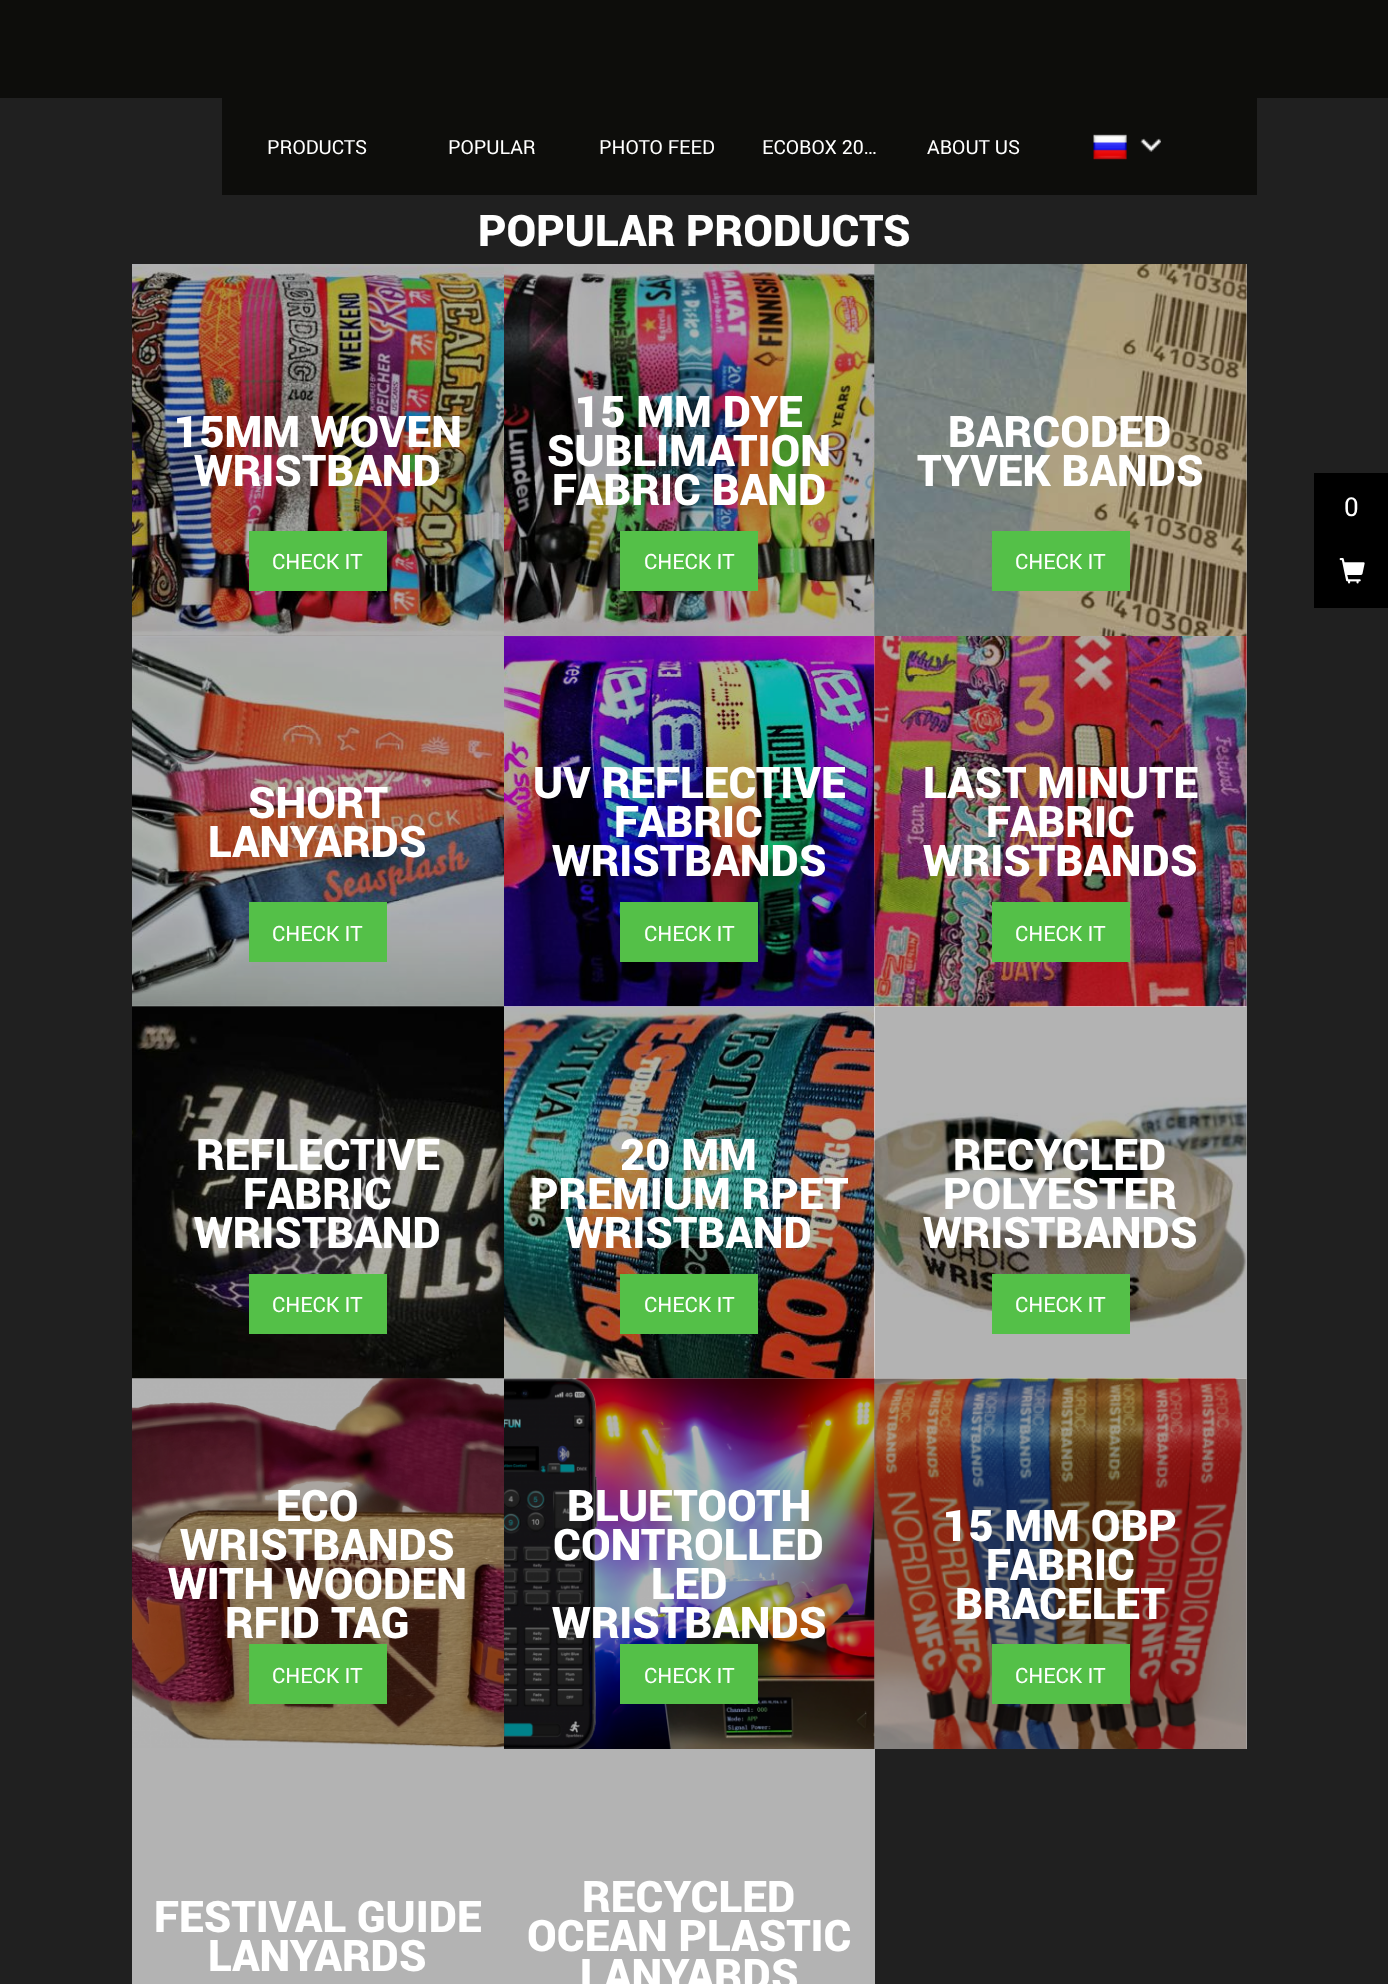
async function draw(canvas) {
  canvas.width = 1388
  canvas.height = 1984
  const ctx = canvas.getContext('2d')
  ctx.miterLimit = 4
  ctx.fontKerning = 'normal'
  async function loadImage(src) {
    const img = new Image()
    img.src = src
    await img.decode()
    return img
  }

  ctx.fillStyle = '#202020'
  ctx.fillRect(0, 0, 1388, 1984)
  ctx.fillStyle = '#0d0d0b'
  ctx.fillRect(0, 0, 1388, 98)
  ctx.fillRect(222, 98, 1035, 97)
  ctx.font = '19.5px Roboto'
  ctx.fillStyle = '#fff'
  ctx.fillText('PRODUCTS', 267, 154)
  ctx.fillText('POPULAR', 448, 154)
  ctx.fillText('PHOTO FEED', 599, 154)
  ctx.fillText('ECOBOX 20…', 762, 154)
  ctx.fillText('ABOUT US', 927, 154)
  ctx.drawImage(await loadImage('image0.png'), 1093, 134, 34, 26)
  ctx.drawImage(await loadImage('image1.png'), 1140, 138, 21, 14)
  ctx.font = '900 43.5px Roboto'
  ctx.fillText('POPULAR PRODUCTS', 478, 246)
  ctx.drawImage(await loadImage('image2.png'), 132, 264, 372, 372)
  ctx.fillText('15MM WOVEN', 174, 447)
  ctx.fillText('WRISTBAND', 194, 486)
  ctx.fillStyle = '#54c048'
  ctx.fillRect(249, 531, 138, 60)
  ctx.font = '21px Roboto'
  ctx.fillStyle = '#fff'
  ctx.fillText('CHECK IT', 272, 569)
  ctx.drawImage(await loadImage('image3.png'), 504, 264, 371, 372)
  ctx.font = '900 43.5px Roboto'
  ctx.fillText('15 MM DYE', 575, 427)
  ctx.fillText('SUBLIMATION', 547, 466)
  ctx.fillText('FABRIC BAND', 552, 505)
  ctx.fillStyle = '#54c048'
  ctx.fillRect(620, 531, 138, 60)
  ctx.font = '21px Roboto'
  ctx.fillStyle = '#fff'
  ctx.fillText('CHECK IT', 644, 569)
  ctx.fillStyle = '#b3b3b3'
  ctx.fillRect(1246, 264, 1, 372)
  ctx.drawImage(await loadImage('image4.png'), 874, 264, 373, 372)
  ctx.font = '900 43.5px Roboto'
  ctx.fillStyle = '#fff'
  ctx.fillText('BARCODED', 948, 447)
  ctx.fillText('TYVEK BANDS', 917, 486)
  ctx.fillStyle = '#54c048'
  ctx.fillRect(992, 531, 138, 60)
  ctx.font = '21px Roboto'
  ctx.fillStyle = '#fff'
  ctx.fillText('CHECK IT', 1015, 569)
  ctx.drawImage(await loadImage('image5.png'), 132, 636, 372, 371)
  ctx.font = '900 43.5px Roboto'
  ctx.fillText('SHORT', 248, 818)
  ctx.fillText('LANYARDS', 208, 857)
  ctx.fillStyle = '#54c048'
  ctx.fillRect(249, 902, 138, 60)
  ctx.font = '21px Roboto'
  ctx.fillStyle = '#fff'
  ctx.fillText('CHECK IT', 272, 941)
  ctx.fillStyle = '#b3b3b3'
  ctx.fillRect(504, 636, 743, 371)
  ctx.drawImage(await loadImage('image6.png'), 504, 636, 371, 371)
  ctx.font = '900 43.5px Roboto'
  ctx.fillStyle = '#fff'
  ctx.fillText('UV REFLECTIVE', 533, 798)
  ctx.fillText('FABRIC', 614, 837)
  ctx.fillText('WRISTBANDS', 552, 876)
  ctx.fillStyle = '#54c048'
  ctx.fillRect(620, 902, 138, 60)
  ctx.font = '21px Roboto'
  ctx.fillStyle = '#fff'
  ctx.fillText('CHECK IT', 644, 941)
  ctx.drawImage(await loadImage('image7.png'), 874, 636, 373, 371)
  ctx.font = '900 43.5px Roboto'
  ctx.fillText('LAST MINUTE', 923, 798)
  ctx.fillText('FABRIC', 986, 837)
  ctx.fillText('WRISTBANDS', 923, 876)
  ctx.fillStyle = '#54c048'
  ctx.fillRect(992, 902, 138, 60)
  ctx.font = '21px Roboto'
  ctx.fillStyle = '#fff'
  ctx.fillText('CHECK IT', 1015, 941)
  ctx.drawImage(await loadImage('image8.png'), 132, 1006, 372, 373)
  ctx.font = '900 43.5px Roboto'
  ctx.fillText('REFLECTIVE', 196, 1170)
  ctx.fillText('FABRIC', 243, 1209)
  ctx.fillText('WRISTBAND', 194, 1248)
  ctx.fillStyle = '#54c048'
  ctx.fillRect(249, 1274, 138, 60)
  ctx.font = '21px Roboto'
  ctx.fillStyle = '#fff'
  ctx.fillText('CHECK IT', 272, 1312)
  ctx.fillStyle = '#b3b3b3'
  ctx.fillRect(504, 1007, 743, 372)
  ctx.drawImage(await loadImage('image9.png'), 504, 1006, 371, 373)
  ctx.font = '900 43.5px Roboto'
  ctx.fillStyle = '#fff'
  ctx.fillText('20 MM', 620, 1170)
  ctx.fillText('PREMIUM RPET', 530, 1209)
  ctx.fillText('WRISTBAND', 565, 1248)
  ctx.fillStyle = '#54c048'
  ctx.fillRect(620, 1274, 138, 60)
  ctx.font = '21px Roboto'
  ctx.fillStyle = '#fff'
  ctx.fillText('CHECK IT', 644, 1312)
  ctx.drawImage(await loadImage('image10.png'), 874, 1006, 373, 373)
  ctx.font = '900 43.5px Roboto'
  ctx.fillText('RECYCLED', 953, 1170)
  ctx.fillText('POLYESTER', 943, 1209)
  ctx.fillText('WRISTBANDS', 923, 1248)
  ctx.fillStyle = '#54c048'
  ctx.fillRect(992, 1274, 138, 60)
  ctx.font = '21px Roboto'
  ctx.fillStyle = '#fff'
  ctx.fillText('CHECK IT', 1015, 1312)
  ctx.fillStyle = '#b3b3b3'
  ctx.fillRect(132, 1738, 372, 246)
  ctx.drawImage(await loadImage('image11.png'), 132, 1378, 372, 370)
  ctx.font = '900 43.5px Roboto'
  ctx.fillStyle = '#fff'
  ctx.fillText('ECO', 276, 1521)
  ctx.fillText('WRISTBANDS', 180, 1560)
  ctx.fillText('WITH WOODEN', 168, 1599)
  ctx.fillText('RFID TAG', 225, 1638)
  ctx.fillStyle = '#54c048'
  ctx.fillRect(249, 1644, 138, 60)
  ctx.font = '21px Roboto'
  ctx.fillStyle = '#fff'
  ctx.fillText('CHECK IT', 272, 1683)
  ctx.drawImage(await loadImage('image12.png'), 504, 1378, 371, 371)
  ctx.font = '900 43.5px Roboto'
  ctx.fillText('BLUETOOTH', 567, 1521)
  ctx.fillText('CONTROLLED', 553, 1560)
  ctx.fillText('LED', 651, 1599)
  ctx.fillText('WRISTBANDS', 552, 1638)
  ctx.fillStyle = '#54c048'
  ctx.fillRect(620, 1644, 138, 60)
  ctx.font = '21px Roboto'
  ctx.fillStyle = '#fff'
  ctx.fillText('CHECK IT', 644, 1683)
  ctx.fillStyle = '#b3b3b3'
  ctx.fillRect(1246, 1379, 1, 370)
  ctx.drawImage(await loadImage('image13.png'), 874, 1378, 373, 371)
  ctx.font = '900 43.5px Roboto'
  ctx.fillStyle = '#fff'
  ctx.fillText('15 MM OBP', 943, 1541)
  ctx.fillText('FABRIC', 986, 1580)
  ctx.fillText('BRACELET', 955, 1619)
  ctx.fillStyle = '#54c048'
  ctx.fillRect(992, 1644, 138, 60)
  ctx.font = '21px Roboto'
  ctx.fillStyle = '#fff'
  ctx.fillText('CHECK IT', 1015, 1683)
  ctx.font = '900 43.5px Roboto'
  ctx.fillText('FESTIVAL GUIDE', 154, 1932)
  ctx.fillText('LANYARDS', 208, 1971)
  ctx.fillStyle = '#b3b3b3'
  ctx.fillRect(504, 1749, 371, 235)
  ctx.fillStyle = '#fff'
  ctx.fillText('RECYCLED', 582, 1912)
  ctx.fillText('OCEAN PLASTIC', 527, 1951)
  ctx.fillText('LANYARDS', 580, 1990)
  ctx.fillStyle = '#000'
  ctx.fillRect(1314, 473, 74, 135)
  ctx.font = '26px Roboto'
  ctx.fillStyle = '#fff'
  ctx.fillText('0', 1344, 516)
  ctx.drawImage(await loadImage('image14.png'), 1339, 558, 26, 26)
}

draw(document.querySelector('canvas'))
